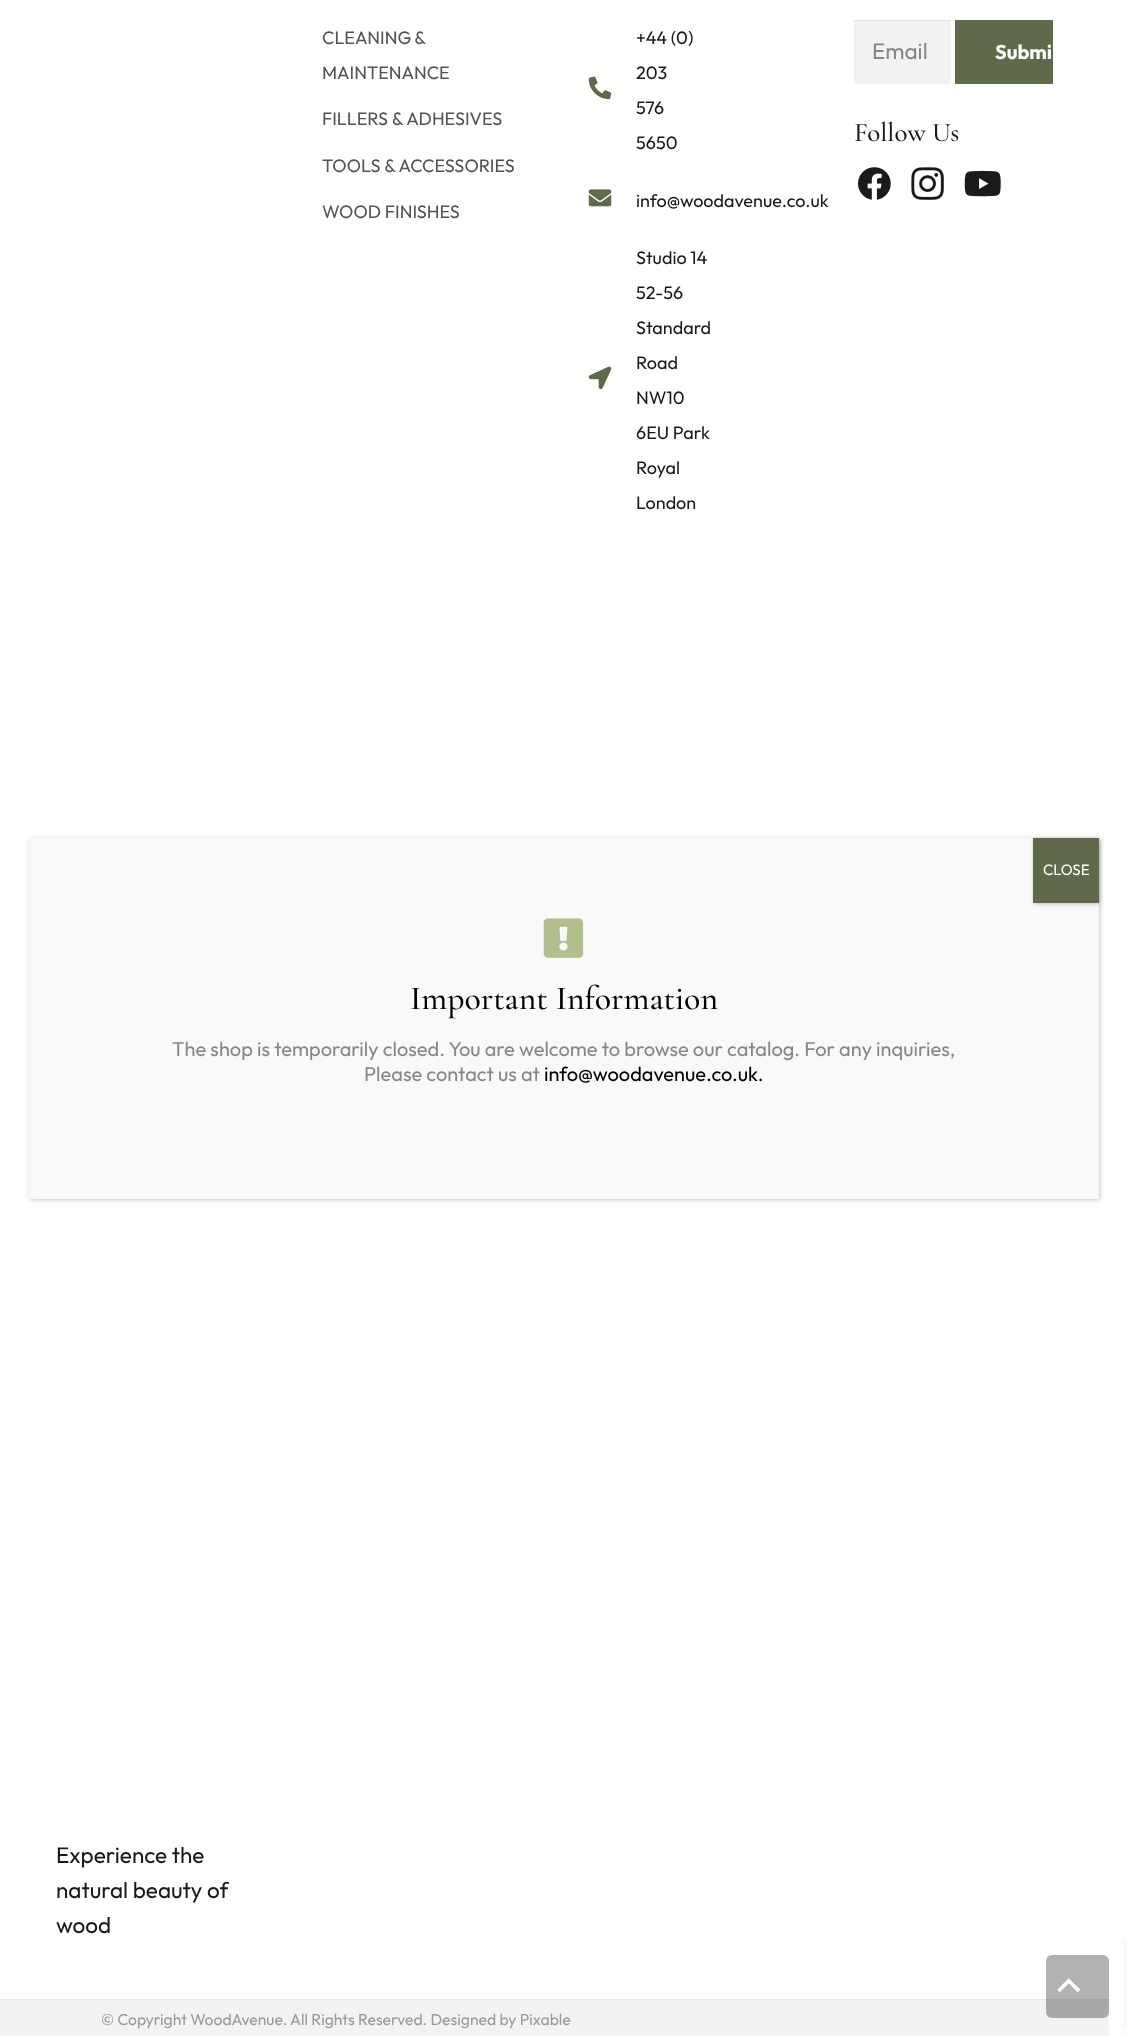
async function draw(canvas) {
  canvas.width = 1127
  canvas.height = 2036
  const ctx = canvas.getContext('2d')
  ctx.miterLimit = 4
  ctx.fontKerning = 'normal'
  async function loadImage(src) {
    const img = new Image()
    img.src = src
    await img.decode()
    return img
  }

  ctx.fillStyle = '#fff'
  ctx.fillRect(0, 0, 1127, 2036)
  ctx.wordSpacing = '-1px'
  ctx.font = '18px Outfit'
  ctx.fillStyle = '#545454'
  ctx.fillText('CLEANING &', 322, 44)
  ctx.wordSpacing = '0px'
  ctx.fillText('MAINTENANCE', 322, 79)
  ctx.fillText('FILLERS & ADHESIVES', 322, 125)
  ctx.fillText('TOOLS & ACCESSORIES', 322, 172)
  ctx.fillText('WOOD FINISHES', 322, 218)
  ctx.drawImage(await loadImage('image0.png'), 588, 76, 24, 24)
  ctx.fillStyle = '#1a1a1a'
  ctx.fillText('+44 (0)', 636, 44)
  ctx.fillText('203', 636, 79)
  ctx.fillText('576', 636, 114)
  ctx.fillText('5650', 636, 149)
  ctx.drawImage(await loadImage('image1.png'), 588, 189, 24, 18)
  ctx.fillText('info@woodavenue.co.uk', 636, 207)
  ctx.drawImage(await loadImage('image2.png'), 588, 366, 24, 23)
  ctx.fillText('Studio 14', 636, 264)
  ctx.fillText('52-56', 636, 299)
  ctx.fillText('Standard', 636, 334)
  ctx.fillText('Road', 636, 369)
  ctx.fillText('NW10', 636, 404)
  ctx.fillText('6EU Park', 636, 439)
  ctx.fillText('Royal', 636, 474)
  ctx.fillText('London', 636, 509)
  ctx.fillStyle = '#f3f3f3'
  ctx.fillRect(854, 21, 97, 63)
  ctx.fillStyle = '#e0e0e0'
  ctx.fillRect(854, 20, 97, 1)
  ctx.font = '22.5px Outfit'
  ctx.fillStyle = '#878787'
  ctx.fillText('Email', 872, 59)
  ctx.fillStyle = '#5e6a49'
  ctx.fillRect(955, 20, 98, 64)
  ctx.font = 'bold 20px Outfit'
  ctx.fillStyle = '#fff'
  ctx.fillText('Submi', 995, 59)
  ctx.font = '300 27px Cormorant Garamond'
  ctx.fillStyle = '#1a1a1a'
  ctx.fillText('Follow Us', 854, 141)
  ctx.drawImage(await loadImage('image3.png'), 858, 167, 33, 33)
  ctx.drawImage(await loadImage('image4.png'), 911, 167, 33, 33)
  ctx.drawImage(await loadImage('image5.png'), 964, 170, 37, 27)
  ctx.font = '22.5px Outfit'
  ctx.fillText('Experience the', 56, 1863)
  ctx.fillText('natural beauty of', 56, 1898)
  ctx.fillText('wood', 56, 1933)
  ctx.fillStyle = '#f3f3f3'
  ctx.fillRect(0, 2000, 1109, 36)
  ctx.fillStyle = '#e8e8e8'
  ctx.fillRect(0, 1999, 1109, 1)
  ctx.font = '15.75px Outfit'
  ctx.fillStyle = '#999'
  ctx.fillText('© Copyright WoodAvenue.', 101, 2025)
  ctx.fillText('All Rights Reserved. Designed by Pixable', 290, 2025)
  ctx.fillStyle = '#0202023b'
  ctx.filter = 'blur(2px)'
  ctx.beginPath()
  ctx.rect(30, 839, 1070, 361)
  ctx.fill()
  ctx.filter = 'none'
  ctx.fillStyle = '#f9f9f9'
  ctx.fillRect(29, 838, 1070, 361)
  ctx.fillStyle = '#0202023b'
  ctx.filter = 'blur(2px)'
  ctx.beginPath()
  ctx.rect(1034, 839, 66, 65)
  ctx.fill()
  ctx.filter = 'none'
  ctx.fillStyle = '#5e6a49'
  ctx.fillRect(1033, 838, 66, 65)
  ctx.font = '15px Outfit'
  ctx.fillStyle = '#fff'
  ctx.fillText('CLOSE', 1043, 875)
  ctx.drawImage(await loadImage('image6.png'), 543, 918, 41, 40)
  ctx.font = '300 33.75px Cormorant Garamond'
  ctx.fillStyle = '#000'
  ctx.fillText('Important Information', 410, 1009)
  ctx.font = '20px Outfit'
  ctx.fillStyle = '#878787'
  ctx.fillText('The shop is temporarily closed. You are welcome to browse our catalog. For any inquiries,', 172, 1056)
  ctx.fillText('Please contact us at', 364, 1081)
  ctx.fillStyle = '#000'
  ctx.fillText('info@woodavenue.co.uk.', 544, 1081)
  ctx.fillStyle = '#0000004d'
  ctx.beginPath()
  ctx.roundRect(1046, 1955, 63, 63, 6)
  ctx.fill()
  ctx.drawImage(await loadImage('image7.png'), 1057, 1978, 23, 14)
  ctx.fillStyle = '#0000001a'
  ctx.filter = 'blur(6px)'
  ctx.beginPath()
  ctx.rect(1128, 1941, 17, 89)
  ctx.fill()
  ctx.filter = 'none'
}

draw(document.querySelector('canvas'))
